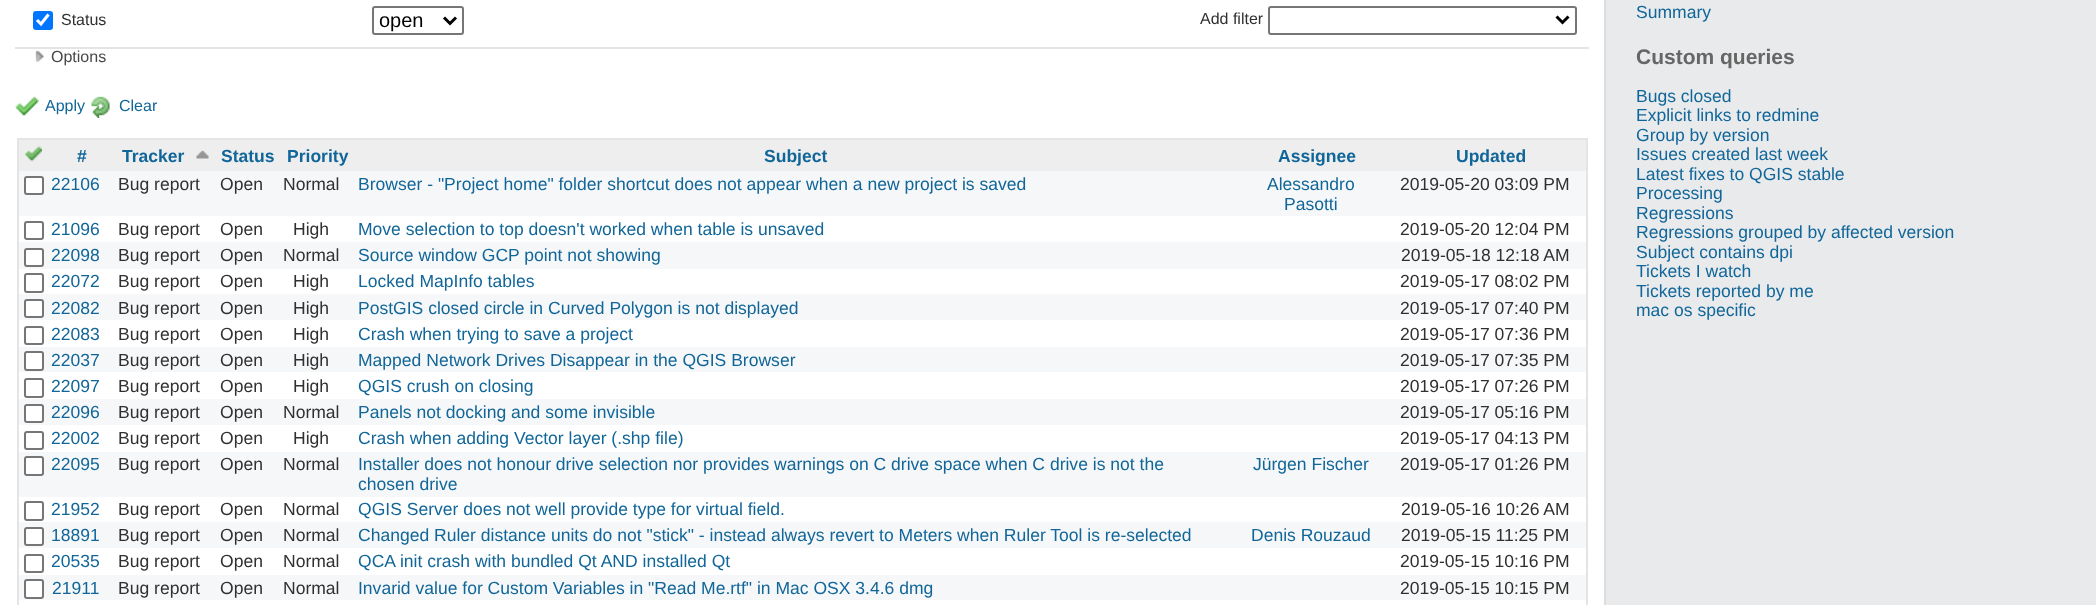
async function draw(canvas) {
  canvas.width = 2096
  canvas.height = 605
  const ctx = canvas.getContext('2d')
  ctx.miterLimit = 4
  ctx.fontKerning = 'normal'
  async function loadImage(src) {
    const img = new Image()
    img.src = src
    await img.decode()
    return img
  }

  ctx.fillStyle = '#e8eaec'
  ctx.fillRect(0, 0, 2096, 605)
  ctx.fillStyle = '#fff'
  ctx.fillRect(0, 0, 1604, 605)
  ctx.fillStyle = '#ddd'
  ctx.fillRect(1604, 0, 2, 605)
  ctx.fillStyle = '#0075ff'
  ctx.beginPath()
  ctx.roundRect(33, 11, 20, 19, 3)
  ctx.fill()
  ctx.beginPath()
  ctx.moveTo(37, 20)
  ctx.lineTo(41, 24)
  ctx.lineTo(48.5, 14.5)
  ctx.strokeStyle = '#fff'
  ctx.lineWidth = 3.1
  ctx.stroke()
  ctx.font = '16px Liberation Sans'
  ctx.fillStyle = '#303030'
  ctx.fillText('Status', 61, 25)
  ctx.beginPath()
  ctx.roundRect(373, 7, 90, 27, 2)
  ctx.strokeStyle = '#767676'
  ctx.lineWidth = 2
  ctx.stroke()
  ctx.beginPath()
  ctx.moveTo(444, 17.5)
  ctx.lineTo(450, 23.5)
  ctx.lineTo(456, 17.5)
  ctx.strokeStyle = '#000'
  ctx.lineWidth = 3
  ctx.stroke()
  ctx.font = '20px Liberation Sans'
  ctx.fillStyle = '#000'
  ctx.fillText('open', 379, 27)
  ctx.font = '16px Liberation Sans'
  ctx.fillStyle = '#303030'
  ctx.fillText('Add filter', 1200, 24)
  ctx.beginPath()
  ctx.roundRect(1269, 7, 307, 27, 2)
  ctx.strokeStyle = '#767676'
  ctx.lineWidth = 2
  ctx.stroke()
  ctx.beginPath()
  ctx.moveTo(1556.5, 16.5)
  ctx.lineTo(1562.5, 22.5)
  ctx.lineTo(1568.5, 16.5)
  ctx.strokeStyle = '#000'
  ctx.lineWidth = 3
  ctx.stroke()
  ctx.fillStyle = '#e4e4e4'
  ctx.fillRect(15, 47, 1574, 2)
  ctx.drawImage(await loadImage('image0.png'), 35, 50, 9, 12)
  ctx.fillStyle = '#484848'
  ctx.fillText('Options', 51, 62)
  ctx.drawImage(await loadImage('image1.png'), 15, 96, 24, 20)
  ctx.fillStyle = '#169'
  ctx.fillText('Apply', 45, 111)
  ctx.drawImage(await loadImage('image2.png'), 91, 96, 19, 22)
  ctx.fillText('Clear', 119, 111)
  ctx.fillStyle = '#e4e4e4'
  ctx.fillRect(17, 138, 1570, 2)
  ctx.fillRect(1586, 138, 2, 467)
  ctx.fillRect(17, 138, 2, 467)
  ctx.fillStyle = '#eee'
  ctx.fillRect(19, 140, 1567, 31)
  ctx.drawImage(await loadImage('image3.png'), 25, 146, 17, 16)
  ctx.font = 'bold 17.55px Liberation Sans'
  ctx.fillStyle = '#169'
  ctx.fillText('#', 77, 162)
  ctx.fillText('Tracker', 122, 162)
  ctx.drawImage(await loadImage('image4.png'), 196, 150, 13, 9)
  ctx.fillText('Status', 221, 162)
  ctx.fillText('Priority', 287, 162)
  ctx.fillText('Subject', 764, 162)
  ctx.fillText('Assignee', 1278, 162)
  ctx.fillText('Updated', 1456, 162)
  ctx.fillStyle = '#f6f7f8'
  ctx.fillRect(19, 171, 1567, 45)
  ctx.fillStyle = '#fff'
  ctx.beginPath()
  ctx.roundRect(25, 177, 18, 17, 2)
  ctx.fill()
  ctx.strokeStyle = '#767676'
  ctx.lineWidth = 2
  ctx.stroke()
  ctx.font = '17.55px Liberation Sans'
  ctx.fillStyle = '#169'
  ctx.fillText('22106', 51, 190)
  ctx.fillStyle = '#303030'
  ctx.fillText('Bug report', 118, 190)
  ctx.fillText('Open', 220, 190)
  ctx.fillText('Normal', 283, 190)
  ctx.fillStyle = '#169'
  ctx.fillText('Browser - "Project home" folder shortcut does not appear when a new project is saved', 358, 190)
  ctx.fillText('Alessandro', 1267, 190)
  ctx.fillText('Pasotti', 1284, 210)
  ctx.fillStyle = '#303030'
  ctx.fillText('2019-05-20 03:09 PM', 1400, 190)
  ctx.beginPath()
  ctx.roundRect(25, 222, 18, 17, 2)
  ctx.stroke()
  ctx.fillStyle = '#169'
  ctx.fillText('21096', 51, 235)
  ctx.fillStyle = '#303030'
  ctx.fillText('Bug report', 118, 235)
  ctx.fillText('Open', 220, 235)
  ctx.fillText('High', 293, 235)
  ctx.fillStyle = '#169'
  ctx.fillText('Move selection to top doesn\'t worked when table is unsaved', 358, 235)
  ctx.fillStyle = '#303030'
  ctx.fillText('2019-05-20 12:04 PM', 1400, 235)
  ctx.fillStyle = '#f6f7f8'
  ctx.fillRect(19, 242, 1567, 27)
  ctx.fillStyle = '#fff'
  ctx.beginPath()
  ctx.roundRect(25, 249, 18, 17, 2)
  ctx.fill()
  ctx.stroke()
  ctx.fillStyle = '#169'
  ctx.fillText('22098', 51, 261)
  ctx.fillStyle = '#303030'
  ctx.fillText('Bug report', 118, 261)
  ctx.fillText('Open', 220, 261)
  ctx.fillText('Normal', 283, 261)
  ctx.fillStyle = '#169'
  ctx.fillText('Source window GCP point not showing', 358, 261)
  ctx.fillStyle = '#303030'
  ctx.fillText('2019-05-18 12:18 AM', 1401, 261)
  ctx.beginPath()
  ctx.roundRect(25, 274, 18, 18, 2)
  ctx.stroke()
  ctx.fillStyle = '#169'
  ctx.fillText('22072', 51, 287)
  ctx.fillStyle = '#303030'
  ctx.fillText('Bug report', 118, 287)
  ctx.fillText('Open', 220, 287)
  ctx.fillText('High', 293, 287)
  ctx.fillStyle = '#169'
  ctx.fillText('Locked MapInfo tables', 358, 287)
  ctx.fillStyle = '#303030'
  ctx.fillText('2019-05-17 08:02 PM', 1400, 287)
  ctx.fillStyle = '#f6f7f8'
  ctx.fillRect(19, 294, 1567, 26)
  ctx.fillStyle = '#fff'
  ctx.beginPath()
  ctx.roundRect(25, 300, 18, 17, 2)
  ctx.fill()
  ctx.stroke()
  ctx.fillStyle = '#169'
  ctx.fillText('22082', 51, 314)
  ctx.fillStyle = '#303030'
  ctx.fillText('Bug report', 118, 314)
  ctx.fillText('Open', 220, 314)
  ctx.fillText('High', 293, 314)
  ctx.fillStyle = '#169'
  ctx.fillText('PostGIS closed circle in Curved Polygon is not displayed', 358, 314)
  ctx.fillStyle = '#303030'
  ctx.fillText('2019-05-17 07:40 PM', 1400, 314)
  ctx.beginPath()
  ctx.roundRect(25, 327, 18, 17, 2)
  ctx.stroke()
  ctx.fillStyle = '#169'
  ctx.fillText('22083', 51, 340)
  ctx.fillStyle = '#303030'
  ctx.fillText('Bug report', 118, 340)
  ctx.fillText('Open', 220, 340)
  ctx.fillText('High', 293, 340)
  ctx.fillStyle = '#169'
  ctx.fillText('Crash when trying to save a project', 358, 340)
  ctx.fillStyle = '#303030'
  ctx.fillText('2019-05-17 07:36 PM', 1400, 340)
  ctx.fillStyle = '#f6f7f8'
  ctx.fillRect(19, 347, 1567, 25)
  ctx.fillStyle = '#fff'
  ctx.beginPath()
  ctx.roundRect(25, 352, 18, 18, 2)
  ctx.fill()
  ctx.stroke()
  ctx.fillStyle = '#169'
  ctx.fillText('22037', 51, 366)
  ctx.fillStyle = '#303030'
  ctx.fillText('Bug report', 118, 366)
  ctx.fillText('Open', 220, 366)
  ctx.fillText('High', 293, 366)
  ctx.fillStyle = '#169'
  ctx.fillText('Mapped Network Drives Disappear in the QGIS Browser', 358, 366)
  ctx.fillStyle = '#303030'
  ctx.fillText('2019-05-17 07:35 PM', 1400, 366)
  ctx.beginPath()
  ctx.roundRect(25, 379, 18, 18, 2)
  ctx.stroke()
  ctx.fillStyle = '#169'
  ctx.fillText('22097', 51, 392)
  ctx.fillStyle = '#303030'
  ctx.fillText('Bug report', 118, 392)
  ctx.fillText('Open', 220, 392)
  ctx.fillText('High', 293, 392)
  ctx.fillStyle = '#169'
  ctx.fillText('QGIS crush on closing', 358, 392)
  ctx.fillStyle = '#303030'
  ctx.fillText('2019-05-17 07:26 PM', 1400, 392)
  ctx.fillStyle = '#f6f7f8'
  ctx.fillRect(19, 399, 1567, 26)
  ctx.fillStyle = '#fff'
  ctx.beginPath()
  ctx.roundRect(25, 405, 18, 17, 2)
  ctx.fill()
  ctx.stroke()
  ctx.fillStyle = '#169'
  ctx.fillText('22096', 51, 418)
  ctx.fillStyle = '#303030'
  ctx.fillText('Bug report', 118, 418)
  ctx.fillText('Open', 220, 418)
  ctx.fillText('Normal', 283, 418)
  ctx.fillStyle = '#169'
  ctx.fillText('Panels not docking and some invisible', 358, 418)
  ctx.fillStyle = '#303030'
  ctx.fillText('2019-05-17 05:16 PM', 1400, 418)
  ctx.beginPath()
  ctx.roundRect(25, 432, 18, 17, 2)
  ctx.stroke()
  ctx.fillStyle = '#169'
  ctx.fillText('22002', 51, 444)
  ctx.fillStyle = '#303030'
  ctx.fillText('Bug report', 118, 444)
  ctx.fillText('Open', 220, 444)
  ctx.fillText('High', 293, 444)
  ctx.fillStyle = '#169'
  ctx.fillText('Crash when adding Vector layer (.shp file)', 358, 444)
  ctx.fillStyle = '#303030'
  ctx.fillText('2019-05-17 04:13 PM', 1400, 444)
  ctx.fillStyle = '#f6f7f8'
  ctx.fillRect(19, 452, 1567, 45)
  ctx.fillStyle = '#fff'
  ctx.beginPath()
  ctx.roundRect(25, 457, 18, 18, 2)
  ctx.fill()
  ctx.stroke()
  ctx.fillStyle = '#169'
  ctx.fillText('22095', 51, 470)
  ctx.fillStyle = '#303030'
  ctx.fillText('Bug report', 118, 470)
  ctx.fillText('Open', 220, 470)
  ctx.fillText('Normal', 283, 470)
  ctx.fillStyle = '#169'
  ctx.fillText('Installer does not honour drive selection nor provides warnings on C drive space when C drive is not the', 358, 470)
  ctx.fillText('chosen drive', 358, 490)
  ctx.fillText('Jürgen Fischer', 1253, 470)
  ctx.fillStyle = '#303030'
  ctx.fillText('2019-05-17 01:26 PM', 1400, 470)
  ctx.beginPath()
  ctx.roundRect(25, 502, 18, 18, 2)
  ctx.stroke()
  ctx.fillStyle = '#169'
  ctx.fillText('21952', 51, 515)
  ctx.fillStyle = '#303030'
  ctx.fillText('Bug report', 118, 515)
  ctx.fillText('Open', 220, 515)
  ctx.fillText('Normal', 283, 515)
  ctx.fillStyle = '#169'
  ctx.fillText('QGIS Server does not well provide type for virtual field.', 358, 515)
  ctx.fillStyle = '#303030'
  ctx.fillText('2019-05-16 10:26 AM', 1401, 515)
  ctx.fillStyle = '#f6f7f8'
  ctx.fillRect(19, 522, 1567, 26)
  ctx.fillStyle = '#fff'
  ctx.beginPath()
  ctx.roundRect(25, 528, 18, 17, 2)
  ctx.fill()
  ctx.stroke()
  ctx.fillStyle = '#169'
  ctx.fillText('18891', 51, 541)
  ctx.fillStyle = '#303030'
  ctx.fillText('Bug report', 118, 541)
  ctx.fillText('Open', 220, 541)
  ctx.fillText('Normal', 283, 541)
  ctx.fillStyle = '#169'
  ctx.fillText('Changed Ruler distance units do not "stick" - instead always revert to Meters when Ruler Tool is re-selected', 358, 541)
  ctx.fillText('Denis Rouzaud', 1251, 541)
  ctx.fillStyle = '#303030'
  ctx.fillText('2019-05-15 11:25 PM', 1401, 541)
  ctx.beginPath()
  ctx.roundRect(25, 555, 18, 17, 2)
  ctx.stroke()
  ctx.fillStyle = '#169'
  ctx.fillText('20535', 51, 567)
  ctx.fillStyle = '#303030'
  ctx.fillText('Bug report', 118, 567)
  ctx.fillText('Open', 220, 567)
  ctx.fillText('Normal', 283, 567)
  ctx.fillStyle = '#169'
  ctx.fillText('QCA init crash with bundled Qt AND installed Qt', 358, 567)
  ctx.fillStyle = '#303030'
  ctx.fillText('2019-05-15 10:16 PM', 1400, 567)
  ctx.fillStyle = '#f6f7f8'
  ctx.fillRect(19, 575, 1567, 25)
  ctx.fillStyle = '#fff'
  ctx.beginPath()
  ctx.roundRect(25, 580, 18, 18, 2)
  ctx.fill()
  ctx.stroke()
  ctx.fillStyle = '#169'
  ctx.fillText('21911', 52, 594)
  ctx.fillStyle = '#303030'
  ctx.fillText('Bug report', 118, 594)
  ctx.fillText('Open', 220, 594)
  ctx.fillText('Normal', 283, 594)
  ctx.fillStyle = '#169'
  ctx.fillText('Invarid value for Custom Variables in "Read Me.rtf" in Mac OSX 3.4.6 dmg', 358, 594)
  ctx.fillStyle = '#303030'
  ctx.fillText('2019-05-15 10:15 PM', 1400, 594)
  ctx.fillStyle = '#169'
  ctx.fillText('Summary', 1636, 18)
  ctx.font = 'bold 21px Liberation Sans'
  ctx.fillStyle = '#666'
  ctx.fillText('Custom queries', 1636, 64)
  ctx.font = '17.55px Liberation Sans'
  ctx.fillStyle = '#169'
  ctx.fillText('Bugs closed', 1636, 102)
  ctx.fillText('Explicit links to redmine', 1636, 121)
  ctx.fillText('Group by version', 1636, 141)
  ctx.fillText('Issues created last week', 1636, 160)
  ctx.fillText('Latest fixes to QGIS stable', 1636, 180)
  ctx.fillText('Processing', 1636, 199)
  ctx.fillText('Regressions', 1636, 219)
  ctx.fillText('Regressions grouped by affected version', 1636, 238)
  ctx.fillText('Subject contains dpi', 1636, 258)
  ctx.fillText('Tickets I watch', 1636, 277)
  ctx.fillText('Tickets reported by me', 1636, 297)
  ctx.fillText('mac os specific', 1636, 316)
}

draw(document.querySelector('canvas'))
